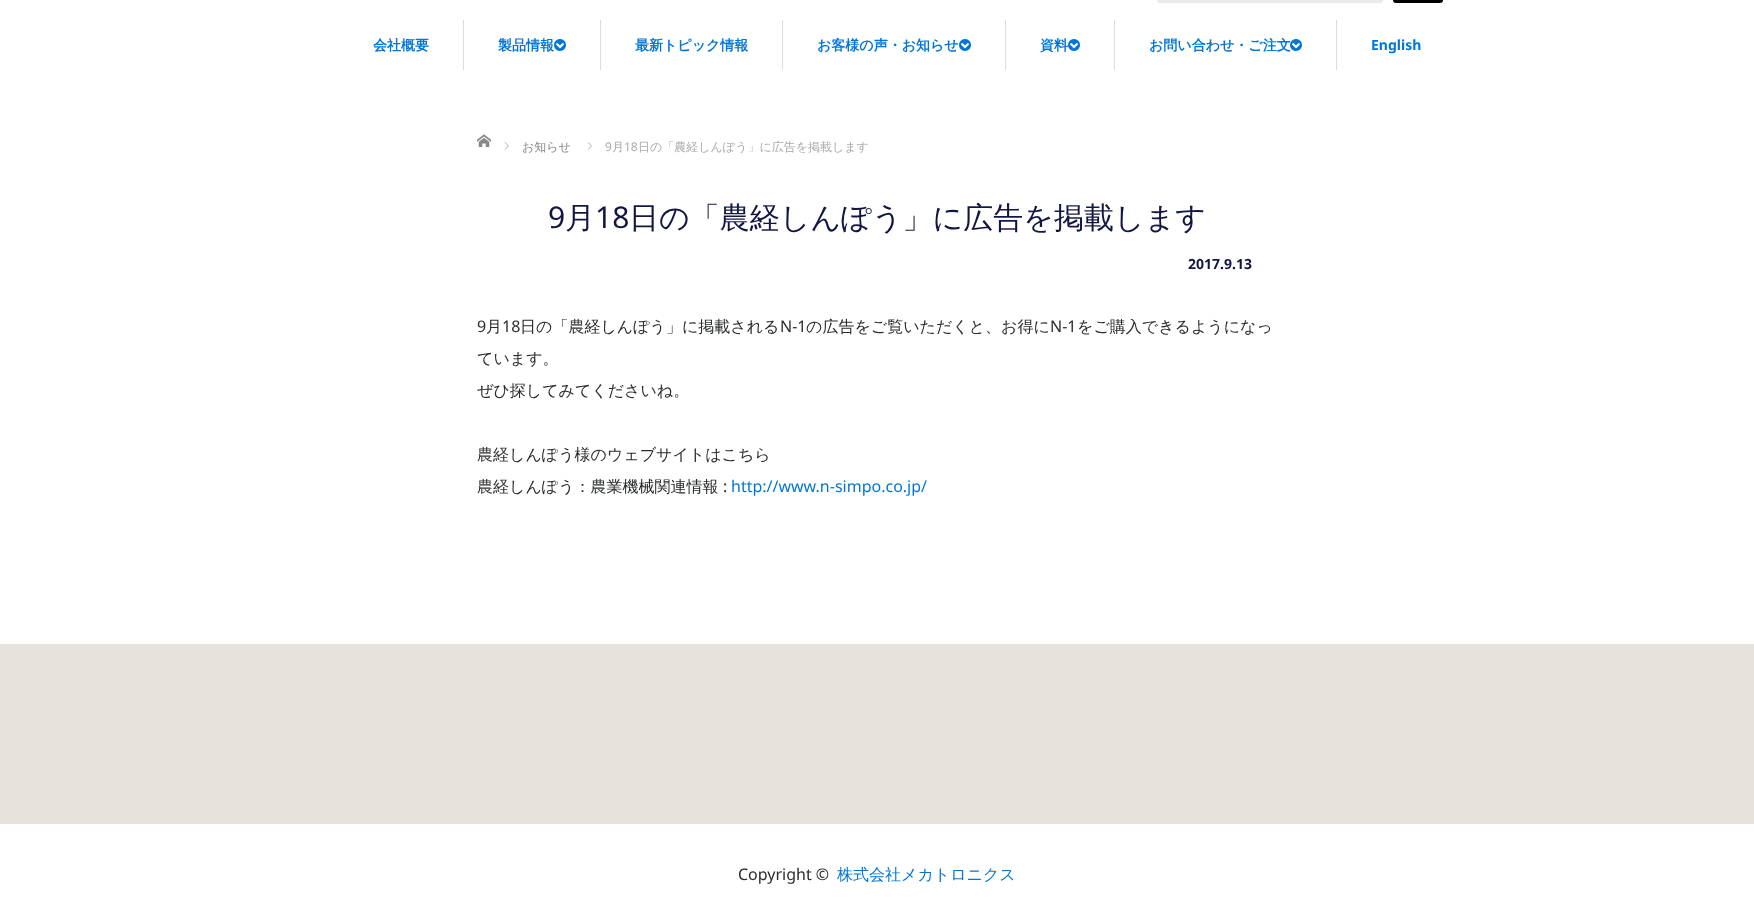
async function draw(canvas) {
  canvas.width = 1754
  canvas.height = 924
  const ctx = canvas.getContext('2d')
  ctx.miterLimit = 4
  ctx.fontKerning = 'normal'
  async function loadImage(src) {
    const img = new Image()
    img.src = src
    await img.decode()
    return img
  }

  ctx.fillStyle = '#fff'
  ctx.fillRect(0, 0, 1754, 924)
  ctx.beginPath()
  ctx.roundRect(1158.5, -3.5, 223, 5, 0.5)
  ctx.strokeStyle = '#eaeaea'
  ctx.lineWidth = 3
  ctx.stroke()
  ctx.fillStyle = '#000'
  ctx.beginPath()
  ctx.roundRect(1393, -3, 50, 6, 3)
  ctx.fill()
  ctx.font = 'bold 14px WenQuanYi Zen Hei'
  ctx.fillStyle = '#0275d8'
  ctx.fillText('会社概要', 373, 50)
  ctx.fillStyle = '#ddd'
  ctx.fillRect(463, 20, 1, 50)
  ctx.fillStyle = '#0275d8'
  ctx.fillText('製品情報', 498, 50)
  ctx.drawImage(await loadImage('image0.png'), 554, 39, 12, 12)
  ctx.fillStyle = '#ddd'
  ctx.fillRect(600, 20, 1, 50)
  ctx.fillStyle = '#0275d8'
  ctx.fillText('最新トピック情報', 635, 50)
  ctx.fillStyle = '#ddd'
  ctx.fillRect(782, 20, 1, 50)
  ctx.fillStyle = '#0275d8'
  ctx.fillText('お客様の声・お知らせ', 817, 50)
  ctx.drawImage(await loadImage('image0.png'), 959, 39, 12, 12)
  ctx.fillStyle = '#ddd'
  ctx.fillRect(1005, 20, 1, 50)
  ctx.fillStyle = '#0275d8'
  ctx.fillText('資料', 1040, 50)
  ctx.drawImage(await loadImage('image0.png'), 1068, 39, 12, 12)
  ctx.fillStyle = '#ddd'
  ctx.fillRect(1114, 20, 1, 50)
  ctx.fillStyle = '#0275d8'
  ctx.fillText('お問い合わせ・ご注文', 1149, 50)
  ctx.drawImage(await loadImage('image0.png'), 1290, 39, 12, 12)
  ctx.fillStyle = '#ddd'
  ctx.fillRect(1336, 20, 1, 50)
  ctx.font = 'bold 14px Noto Sans'
  ctx.fillStyle = '#0275d8'
  ctx.fillText('English', 1371, 50)
  ctx.drawImage(await loadImage('image1.png'), 477, 134, 14, 13)
  ctx.drawImage(await loadImage('image2.png'), 504, 142, 5, 8)
  ctx.font = '500 12px WenQuanYi Zen Hei'
  ctx.fillStyle = '#888'
  ctx.fillText('お知らせ', 522, 151)
  ctx.drawImage(await loadImage('image2.png'), 587, 142, 5, 8)
  ctx.font = '12px Noto Sans'
  ctx.fillStyle = '#aaa'
  ctx.fillText('9', 605, 151)
  ctx.font = '500 12px WenQuanYi Zen Hei'
  ctx.fillText('月', 612, 151)
  ctx.font = '12px Noto Sans'
  ctx.fillText('18', 624, 151)
  ctx.font = '500 12px WenQuanYi Zen Hei'
  ctx.fillText('日の「農経しんぽう」に広告を掲載します', 638, 151)
  ctx.font = '30px Noto Sans'
  ctx.fillStyle = '#121643'
  ctx.fillText('9', 548, 228)
  ctx.font = '500 30px WenQuanYi Zen Hei'
  ctx.fillText('月', 565, 228)
  ctx.font = '30px Noto Sans'
  ctx.fillText('18', 595, 228)
  ctx.font = '500 30px WenQuanYi Zen Hei'
  ctx.fillText('日の「農経しんぽう」に広告を掲載します', 629, 228)
  ctx.font = 'bold 14px Noto Sans'
  ctx.fillText('2017.9.13', 1188, 269)
  ctx.font = '16px Noto Sans'
  ctx.fillStyle = '#292b2c'
  ctx.fillText('9', 477, 332)
  ctx.font = '500 16px WenQuanYi Zen Hei'
  ctx.fillText('月', 486, 332)
  ctx.font = '16px Noto Sans'
  ctx.fillText('18', 502, 332)
  ctx.font = '500 16px WenQuanYi Zen Hei'
  ctx.fillText('日の「農経しんぽう」に掲載される', 520, 332)
  ctx.font = '16px Noto Sans'
  ctx.fillText('N-1', 780, 332)
  ctx.font = '500 16px WenQuanYi Zen Hei'
  ctx.fillText('の広告をご覧いただくと、お得に', 806, 332)
  ctx.font = '16px Noto Sans'
  ctx.fillText('N-1', 1050, 332)
  ctx.font = '500 16px WenQuanYi Zen Hei'
  ctx.fillText('をご購入できるようになっ', 1077, 332)
  ctx.fillText('ています。', 477, 364)
  ctx.fillText('ぜひ探してみてくださいね。', 477, 396)
  ctx.fillText('農経しんぽう様のウェブサイトはこちら', 477, 460)
  ctx.fillText('農経しんぽう：農業機械関連情報', 477, 492)
  ctx.font = '16px Noto Sans'
  ctx.fillText(':', 723, 492)
  ctx.fillStyle = '#0275d8'
  ctx.fillText('http://www.n-simpo.co.jp/', 731, 492)
  ctx.fillStyle = '#e6e3dc'
  ctx.fillRect(0, 644, 1754, 180)
  ctx.fillStyle = '#292b2c'
  ctx.fillText('Copyright ©', 738, 880)
  ctx.font = '500 16px WenQuanYi Zen Hei'
  ctx.fillStyle = '#0275d8'
  ctx.fillText('株式会社メカトロニクス', 837, 880)
}

draw(document.querySelector('canvas'))
